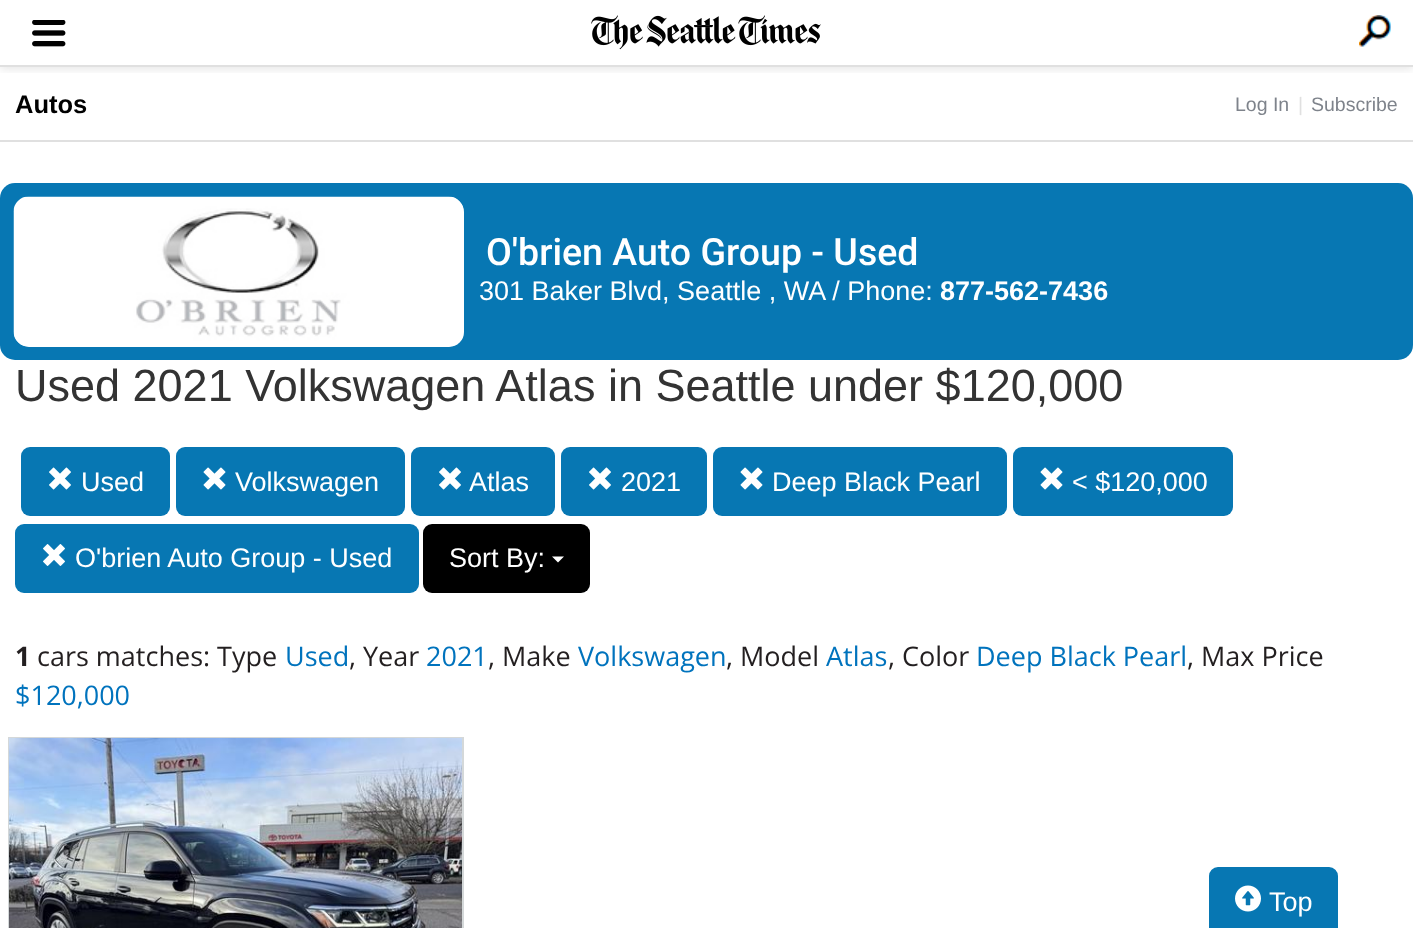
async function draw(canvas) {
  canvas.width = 1413
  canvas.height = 928
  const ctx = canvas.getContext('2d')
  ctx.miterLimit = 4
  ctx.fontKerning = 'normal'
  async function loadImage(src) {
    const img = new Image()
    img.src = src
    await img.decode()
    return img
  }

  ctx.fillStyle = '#fff'
  ctx.fillRect(0, 0, 1413, 928)
  ctx.save()
  ctx.beginPath()
  ctx.rect(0, 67, 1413, 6)
  ctx.clip()
  ctx.fillStyle = '#0000001a'
  ctx.filter = 'blur(5px)'
  ctx.beginPath()
  ctx.rect(0, 3, 1413, 66)
  ctx.fill()
  ctx.filter = 'none'
  ctx.restore()
  ctx.fillStyle = '#e0e0e0'
  ctx.fillRect(0, 65, 1413, 2)
  ctx.drawImage(await loadImage('image0.png'), 32, 20, 34, 27)
  ctx.drawImage(await loadImage('image1.png'), 591, 15, 230, 35)
  ctx.drawImage(await loadImage('image2.png'), 1359, 15, 32, 32)
  ctx.fillRect(0, 140, 1413, 2)
  ctx.font = 'bold 25.5px Liberation Sans'
  ctx.fillStyle = '#000'
  ctx.fillText('Autos', 15, 113)
  ctx.font = '19.5px Liberation Sans'
  ctx.fillStyle = '#7e838b'
  ctx.fillText('Log In', 1235, 111)
  ctx.fillStyle = '#e0e0e0'
  ctx.fillText('|', 1298, 111)
  ctx.fillStyle = '#7e838b'
  ctx.fillText('Subscribe', 1311, 111)
  ctx.fillStyle = '#0777b3'
  ctx.beginPath()
  ctx.roundRect(0, 183, 1413, 177, 15)
  ctx.fill()
  ctx.fillStyle = '#fff'
  ctx.beginPath()
  ctx.roundRect(14, 197, 450, 150, 15)
  ctx.fill()
  ctx.drawImage(await loadImage('image3.png'), 13, 196, 451, 151)
  ctx.font = '500 37.5px Roboto'
  ctx.fillText('O\'brien Auto Group - Used', 486, 265)
  ctx.font = '27px Liberation Sans'
  ctx.fillText('301 Baker Blvd, Seattle , WA / Phone:', 479, 300)
  ctx.font = 'bold 27px Liberation Sans'
  ctx.fillText('877-562-7436', 940, 300)
  ctx.font = '45px Liberation Sans'
  ctx.fillStyle = '#333'
  ctx.fillText('Used 2021 Volkswagen Atlas in Seattle under $120,000', 15, 401)
  ctx.fillStyle = '#0777b3'
  ctx.beginPath()
  ctx.roundRect(21, 447, 149, 69, 9)
  ctx.fill()
  ctx.drawImage(await loadImage('image4.png'), 49, 467, 22, 23)
  ctx.font = '27px Liberation Sans'
  ctx.fillStyle = '#fff'
  ctx.fillText('Used', 81, 491)
  ctx.fillStyle = '#0777b3'
  ctx.beginPath()
  ctx.roundRect(176, 447, 229, 69, 9)
  ctx.fill()
  ctx.drawImage(await loadImage('image5.png'), 203, 467, 23, 23)
  ctx.fillStyle = '#fff'
  ctx.fillText('Volkswagen', 235, 491)
  ctx.fillStyle = '#0777b3'
  ctx.beginPath()
  ctx.roundRect(411, 447, 144, 69, 9)
  ctx.fill()
  ctx.drawImage(await loadImage('image4.png'), 439, 467, 22, 23)
  ctx.fillStyle = '#fff'
  ctx.fillText('Atlas', 469, 491)
  ctx.fillStyle = '#0777b3'
  ctx.beginPath()
  ctx.roundRect(561, 447, 146, 69, 9)
  ctx.fill()
  ctx.drawImage(await loadImage('image4.png'), 589, 467, 22, 23)
  ctx.fillStyle = '#fff'
  ctx.fillText('2021', 621, 491)
  ctx.fillStyle = '#0777b3'
  ctx.beginPath()
  ctx.roundRect(713, 447, 294, 69, 9)
  ctx.fill()
  ctx.drawImage(await loadImage('image5.png'), 740, 467, 23, 23)
  ctx.fillStyle = '#fff'
  ctx.fillText('Deep Black Pearl', 772, 491)
  ctx.fillStyle = '#0777b3'
  ctx.beginPath()
  ctx.roundRect(1013, 447, 220, 69, 9)
  ctx.fill()
  ctx.drawImage(await loadImage('image5.png'), 1040, 467, 23, 23)
  ctx.fillStyle = '#fff'
  ctx.fillText('< $120,000', 1072, 491)
  ctx.fillStyle = '#0777b3'
  ctx.beginPath()
  ctx.roundRect(15, 524, 404, 69, 9)
  ctx.fill()
  ctx.drawImage(await loadImage('image6.png'), 43, 544, 22, 22)
  ctx.fillStyle = '#fff'
  ctx.fillText('O\'brien Auto Group - Used', 75, 567)
  ctx.fillStyle = '#000'
  ctx.beginPath()
  ctx.roundRect(423, 524, 167, 69, 9)
  ctx.fill()
  ctx.fillStyle = '#fff'
  ctx.fillText('Sort By:', 449, 567)
  ctx.beginPath()
  ctx.moveTo(552, 556.5)
  ctx.lineTo(564, 556.5)
  ctx.lineTo(558, 562.5)
  ctx.closePath()
  ctx.fill()
  ctx.font = 'bold 27px Open Sans'
  ctx.fillStyle = '#231f20'
  ctx.fillText('1', 15, 666)
  ctx.font = '27px Open Sans'
  ctx.fillText('cars matches: Type', 37, 666)
  ctx.fillStyle = '#0073bd'
  ctx.fillText('Used', 285, 666)
  ctx.fillStyle = '#231f20'
  ctx.fillText(', Year', 349, 666)
  ctx.fillStyle = '#0073bd'
  ctx.fillText('2021', 426, 666)
  ctx.fillStyle = '#231f20'
  ctx.fillText(', Make', 488, 666)
  ctx.fillStyle = '#0073bd'
  ctx.fillText('Volkswagen', 578, 666)
  ctx.fillStyle = '#231f20'
  ctx.fillText(', Model', 726, 666)
  ctx.fillStyle = '#0073bd'
  ctx.fillText('Atlas', 826, 666)
  ctx.fillStyle = '#231f20'
  ctx.fillText(', Color', 888, 666)
  ctx.fillStyle = '#0073bd'
  ctx.fillText('Deep Black Pearl', 976, 666)
  ctx.fillStyle = '#231f20'
  ctx.fillText(', Max Price', 1187, 666)
  ctx.fillStyle = '#0073bd'
  ctx.fillText('$120,000', 15, 705)
  ctx.strokeStyle = '#d4d8d9'
  ctx.lineWidth = 2
  ctx.strokeRect(9, 738, 454, 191)
  ctx.drawImage(await loadImage('image7.png'), 9, 738, 453, 190)
  ctx.fillStyle = '#0777b3'
  ctx.beginPath()
  ctx.roundRect(1210, 868, 127, 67, 8)
  ctx.fill()
  ctx.strokeStyle = '#0777b3'
  ctx.stroke()
  ctx.drawImage(await loadImage('image8.png'), 1235, 885, 26, 27)
  ctx.font = '27px Liberation Sans'
  ctx.fillStyle = '#fff'
  ctx.fillText('Top', 1269, 911)
}

draw(document.querySelector('canvas'))
